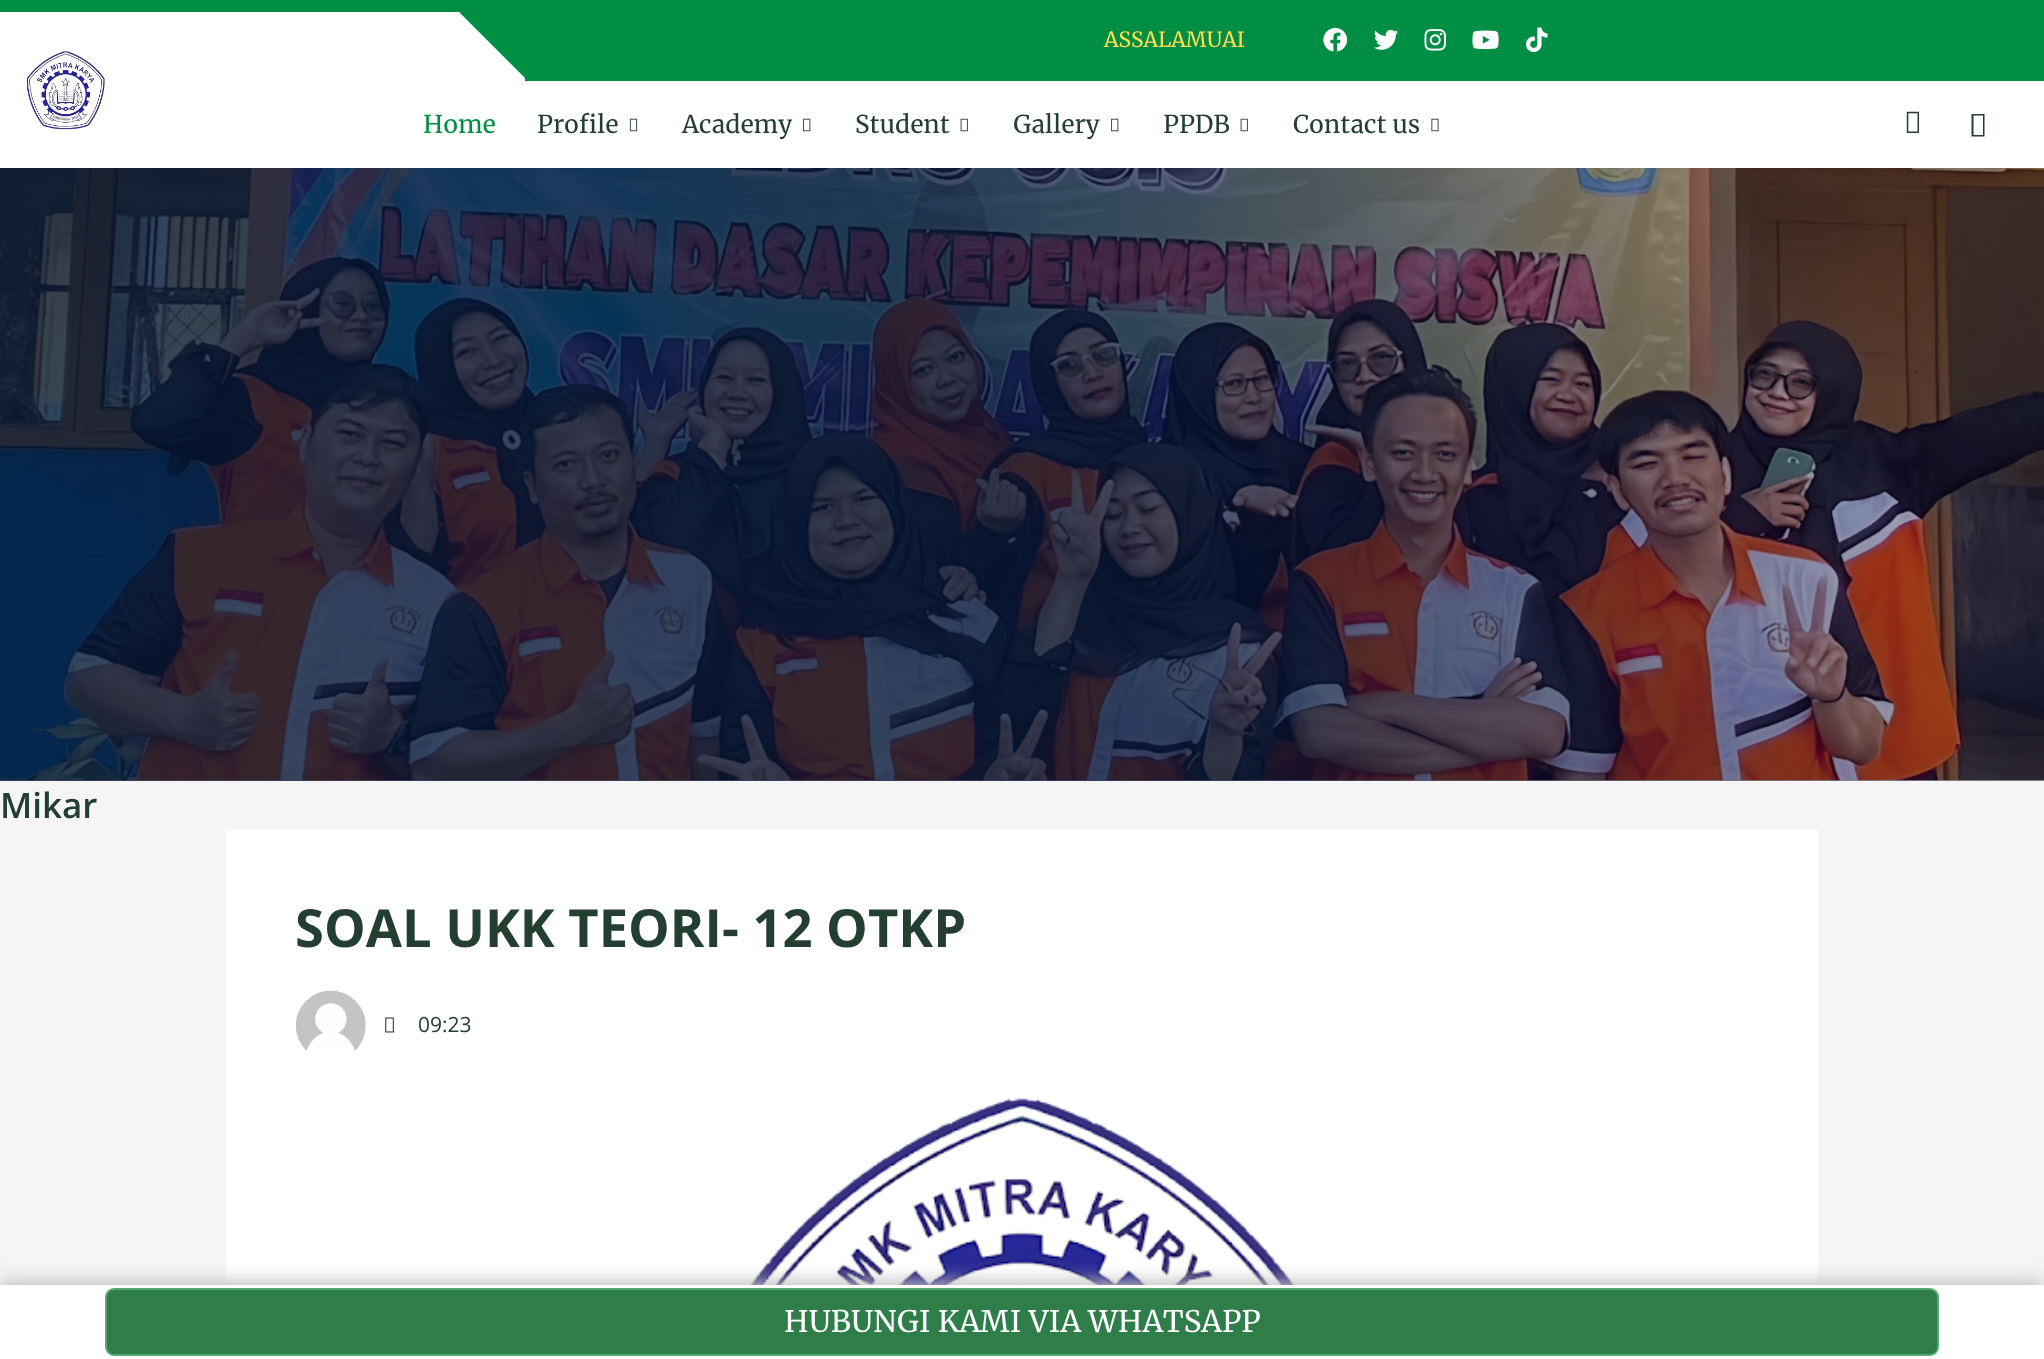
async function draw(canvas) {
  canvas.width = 2044
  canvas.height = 1359
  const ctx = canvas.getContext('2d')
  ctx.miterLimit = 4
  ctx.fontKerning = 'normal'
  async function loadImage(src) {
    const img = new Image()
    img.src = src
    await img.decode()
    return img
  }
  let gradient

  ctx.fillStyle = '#f5f5f5'
  ctx.fillRect(0, 0, 2044, 1359)
  ctx.fillStyle = '#fff'
  ctx.fillRect(0, 12, 2044, 156)
  ctx.fillStyle = '#008e44'
  ctx.fillRect(0, 0, 2044, 12)
  ctx.fillRect(525, 12, 1519, 69)
  ctx.beginPath()
  ctx.moveTo(457, 10)
  ctx.lineTo(527, 10)
  ctx.lineTo(527, 80)
  ctx.closePath()
  ctx.fill()
  ctx.save()
  ctx.beginPath()
  ctx.rect(551, 11, 693, 59)
  ctx.clip()
  ctx.font = '21px Merriweather'
  ctx.fillStyle = '#ffde4f'
  ctx.fillText('ASSALAMUAL', 1104, 47)
  ctx.restore()
  ctx.drawImage(await loadImage('image0.png'), 1323, 27, 25, 25)
  ctx.drawImage(await loadImage('image1.png'), 1374, 29, 25, 21)
  ctx.drawImage(await loadImage('image2.png'), 1424, 29, 22, 22)
  ctx.drawImage(await loadImage('image3.png'), 1472, 30, 27, 19)
  ctx.drawImage(await loadImage('image4.png'), 1526, 27, 22, 26)
  ctx.drawImage(await loadImage('image5.png'), 26, 51, 79, 79)
  ctx.font = '24.5px Merriweather'
  ctx.fillText('Home', 423, 133)
  ctx.fillStyle = '#243e32'
  ctx.fillText('Profile', 537, 133)
  ctx.drawImage(await loadImage('image6.png'), 629, 118, 9, 14)
  ctx.fillText('Academy', 682, 133)
  ctx.drawImage(await loadImage('image7.png'), 803, 118, 8, 14)
  ctx.fillText('Student', 855, 133)
  ctx.drawImage(await loadImage('image8.png'), 960, 118, 8, 14)
  ctx.fillText('Gallery', 1013, 133)
  ctx.drawImage(await loadImage('image7.png'), 1111, 118, 8, 14)
  ctx.fillText('PPDB', 1163, 133)
  ctx.drawImage(await loadImage('image8.png'), 1240, 118, 8, 14)
  ctx.fillText('Contact us', 1293, 133)
  ctx.drawImage(await loadImage('image9.png'), 1431, 118, 8, 14)
  ctx.drawImage(await loadImage('image10.png'), 1906, 111, 14, 22)
  ctx.beginPath()
  ctx.moveTo(1971.5, 136.5)
  ctx.lineTo(1971.5, 114)
  ctx.lineTo(1984.5, 114)
  ctx.lineTo(1984.5, 136.5)
  ctx.closePath()
  ctx.moveTo(1973.5, 135)
  ctx.lineTo(1983, 135)
  ctx.lineTo(1983, 115.5)
  ctx.lineTo(1973.5, 115.5)
  ctx.closePath()
  ctx.fill()
  ctx.drawImage(await loadImage('image11.png'), 0, 168, 2044, 613)
  gradient = ctx.createLinearGradient(123, 993, 1921, -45)
  gradient.addColorStop(0.5, '#051736cc')
  gradient.addColorStop(1, '#05013333')
  ctx.fillStyle = gradient
  ctx.fillRect(0, 168, 2044, 613)
  ctx.font = '600 35px Open Sans'
  ctx.fillStyle = '#243e32'
  ctx.fillText('Mikar', 0, 818)
  ctx.fillStyle = '#fff'
  ctx.fillRect(226, 830, 1592, 455)
  ctx.font = 'bold 52.5px Open Sans'
  ctx.fillStyle = '#243e32'
  ctx.fillText('SOAL UKK TEORI- 12 OTKP', 295, 947)
  ctx.drawImage(await loadImage('image12.png'), 295, 990, 71, 61)
  ctx.drawImage(await loadImage('image13.png'), 385, 1017, 9, 16)
  ctx.font = '21px Open Sans'
  ctx.fillText('09:23', 418, 1032)
  ctx.drawImage(await loadImage('image14.png'), 748, 1098, 548, 187)
  ctx.fillStyle = '#c0c0c0'
  ctx.filter = 'blur(9px)'
  ctx.beginPath()
  ctx.rect(0, 1281, 2044, 75)
  ctx.fill()
  ctx.filter = 'none'
  ctx.fillStyle = '#fff'
  ctx.fillRect(0, 1285, 2044, 74)
  ctx.fillStyle = '#2f7e49'
  ctx.beginPath()
  ctx.roundRect(106, 1289, 1832, 66, 8)
  ctx.fill()
  ctx.strokeStyle = '#56aa71'
  ctx.lineWidth = 2
  ctx.stroke()
  ctx.font = '29.75px Merriweather'
  ctx.fillStyle = '#fff'
  ctx.fillText('HUBUNGI KAMI VIA WHATSAPP', 784, 1332)
}

draw(document.querySelector('canvas'))
